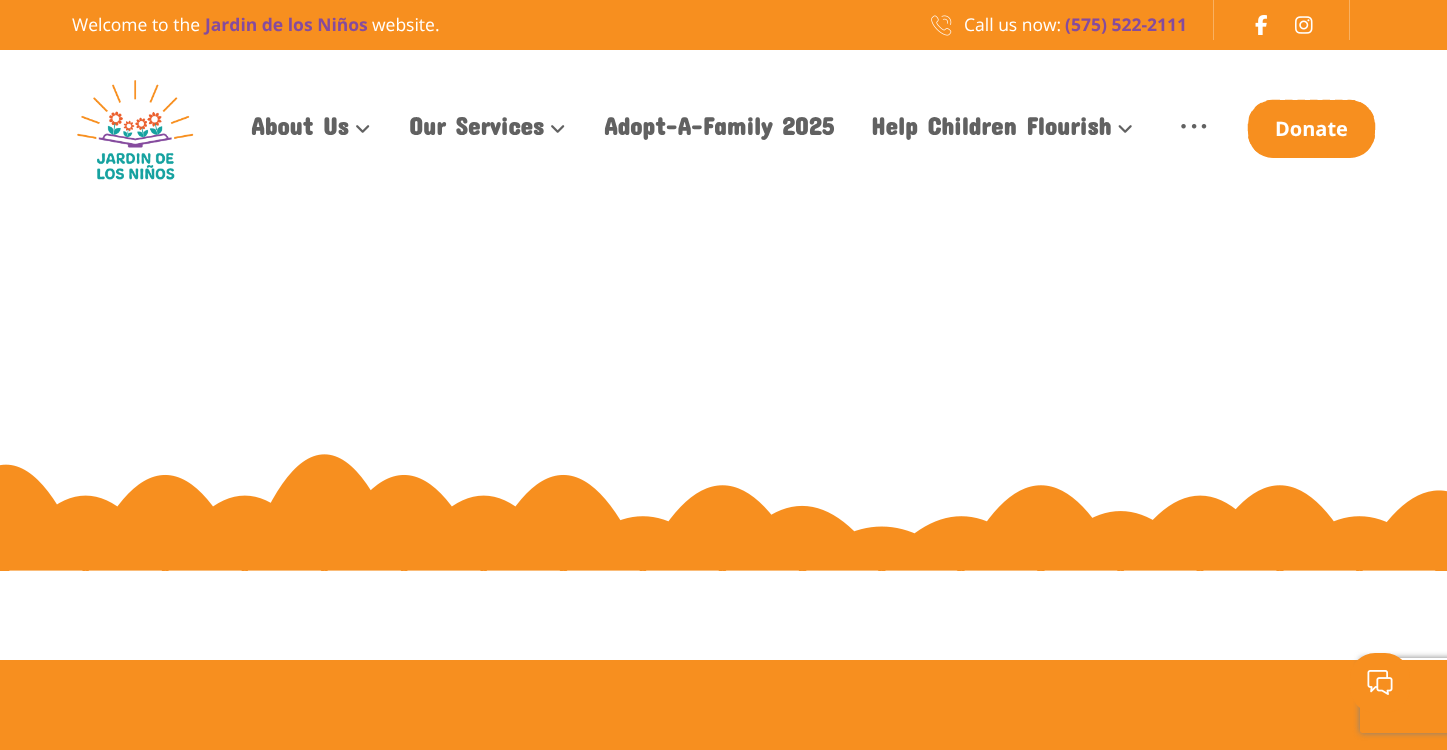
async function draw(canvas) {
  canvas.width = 1447
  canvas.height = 750
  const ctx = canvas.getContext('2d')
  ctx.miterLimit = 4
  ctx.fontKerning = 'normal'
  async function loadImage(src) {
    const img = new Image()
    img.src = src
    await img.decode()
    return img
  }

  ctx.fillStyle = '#fff'
  ctx.fillRect(0, 0, 1447, 750)
  ctx.fillStyle = '#f78f1f'
  ctx.fillRect(0, 0, 1447, 50)
  ctx.font = '17.5px Open Sans'
  ctx.fillStyle = '#fff'
  ctx.fillText('Welcome to the', 72, 31)
  ctx.font = 'bold 17.5px Open Sans'
  ctx.fillStyle = '#854b9e'
  ctx.fillText('Jardin de los Niños', 205, 31)
  ctx.font = '17.5px Open Sans'
  ctx.fillStyle = '#fff'
  ctx.fillText('website.', 372, 31)
  ctx.drawImage(await loadImage('image0.png'), 931, 15, 21, 21)
  ctx.fillText('Call us now:', 964, 31)
  ctx.font = 'bold 17.5px Open Sans'
  ctx.fillStyle = '#854b9e'
  ctx.fillText('(575) 522-2111', 1065, 31)
  ctx.fillStyle = '#f9b162'
  ctx.fillRect(1213, 0, 1, 40)
  ctx.drawImage(await loadImage('image1.png'), 1255, 15, 12, 20)
  ctx.drawImage(await loadImage('image2.png'), 1295, 16, 18, 18)
  ctx.fillRect(1349, 0, 1, 40)
  ctx.drawImage(await loadImage('image3.png'), 77, 80, 117, 100)
  ctx.font = 'bold 25px Concert One'
  ctx.fillStyle = '#616161'
  ctx.fillText('About Us', 251, 135)
  ctx.drawImage(await loadImage('image4.png'), 356, 125, 14, 8)
  ctx.fillText('Our Services', 409, 135)
  ctx.drawImage(await loadImage('image4.png'), 551, 125, 14, 8)
  ctx.fillText('Adopt-A-Family 2025', 604, 135)
  ctx.fillText('Help Children Flourish', 871, 135)
  ctx.drawImage(await loadImage('image5.png'), 1118, 125, 14, 8)
  ctx.drawImage(await loadImage('image6.png'), 1181, 124, 26, 5)
  ctx.fillStyle = '#f78f1f'
  ctx.beginPath()
  ctx.roundRect(1248, 100, 127, 58, 25)
  ctx.fill()
  ctx.beginPath()
  ctx.moveTo(1272.5, 101)
  ctx.lineTo(1350, 101)
  ctx.bezierCurveTo(1363, 101, 1374, 112, 1374, 125)
  ctx.lineTo(1374, 132.5)
  ctx.bezierCurveTo(1374, 145.5, 1363, 156, 1350, 156)
  ctx.lineTo(1272.5, 156)
  ctx.bezierCurveTo(1259.5, 156, 1249, 145.5, 1249, 132.5)
  ctx.lineTo(1249, 125)
  ctx.bezierCurveTo(1249, 112, 1259.5, 101, 1272.5, 101)
  ctx.closePath()
  ctx.strokeStyle = '#f78f1f'
  ctx.lineWidth = 2.5
  ctx.setLineDash([7.5, 5])
  ctx.stroke()
  ctx.font = 'bold 20px Open Sans'
  ctx.fillStyle = '#fff'
  ctx.fillText('Donate', 1275, 136)
  ctx.drawImage(await loadImage('image7.png'), 0, 454, 1447, 117)
  ctx.fillStyle = '#f78f1f'
  ctx.fillRect(0, 660, 1447, 90)
  ctx.save()
  ctx.beginPath()
  ctx.moveTo(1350, 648)
  ctx.lineTo(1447, 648)
  ctx.lineTo(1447, 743)
  ctx.lineTo(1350, 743)
  ctx.closePath()
  ctx.moveTo(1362.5, 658)
  ctx.lineTo(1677.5, 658)
  ctx.bezierCurveTo(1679, 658, 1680, 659, 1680, 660.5)
  ctx.lineTo(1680, 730.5)
  ctx.bezierCurveTo(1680, 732, 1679, 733, 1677.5, 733)
  ctx.lineTo(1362.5, 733)
  ctx.bezierCurveTo(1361, 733, 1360, 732, 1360, 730.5)
  ctx.lineTo(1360, 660.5)
  ctx.bezierCurveTo(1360, 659, 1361, 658, 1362.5, 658)
  ctx.closePath()
  ctx.clip('evenodd')
  ctx.fillStyle = '#808080'
  ctx.filter = 'blur(3px)'
  ctx.beginPath()
  ctx.roundRect(1360, 658, 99, 75, 2.5)
  ctx.fill()
  ctx.filter = 'none'
  ctx.restore()
  ctx.beginPath()
  ctx.roundRect(1350, 653, 60, 60, 25)
  ctx.fill()
  ctx.drawImage(await loadImage('image8.png'), 1367, 670, 26, 25)
}

draw(document.querySelector('canvas'))
